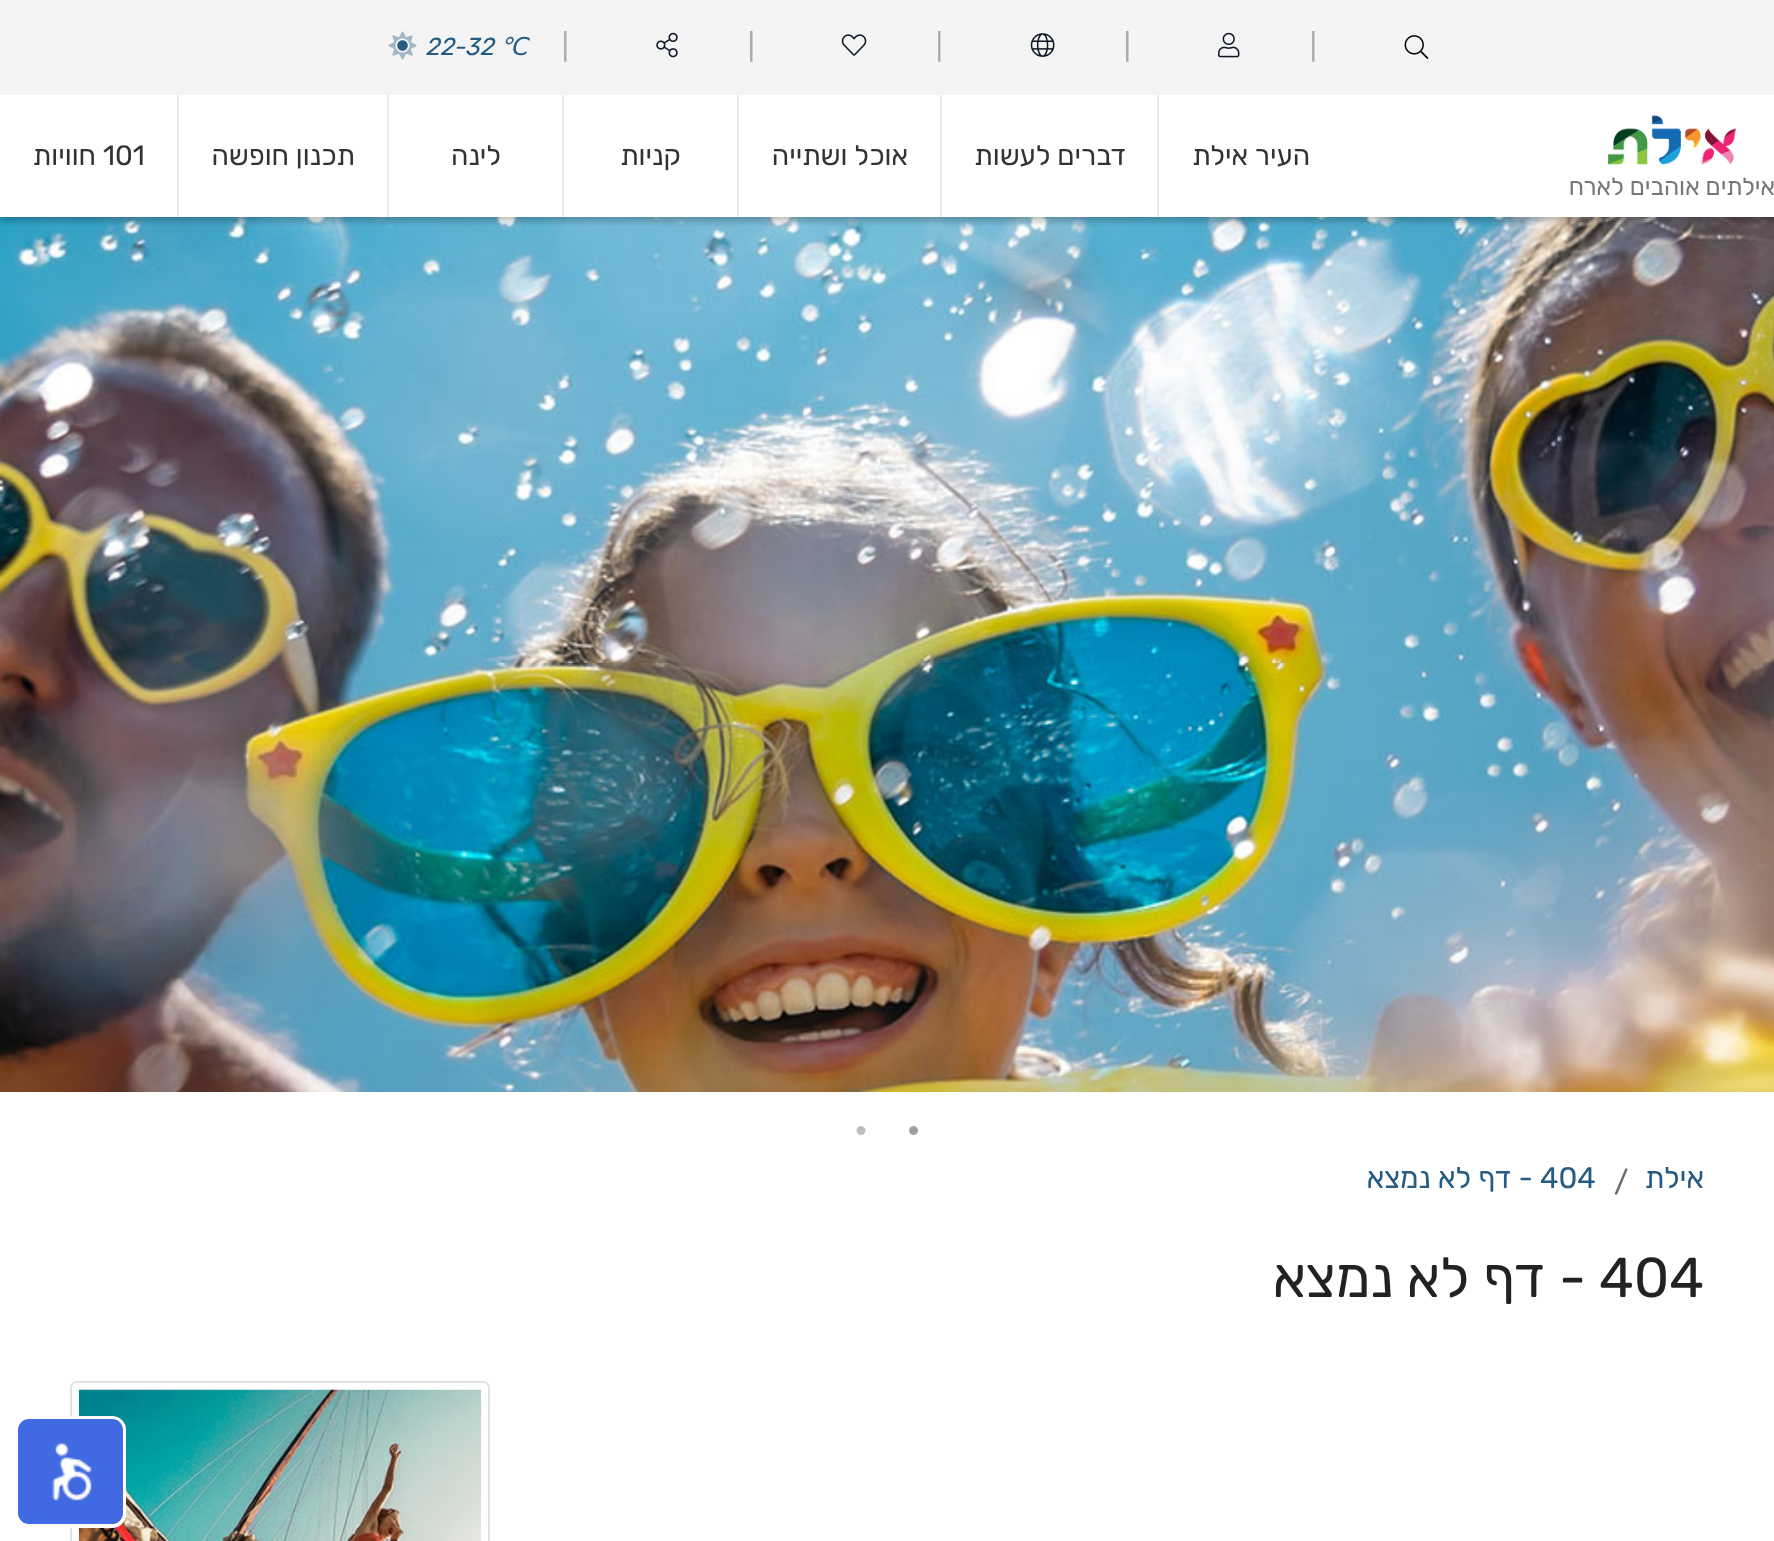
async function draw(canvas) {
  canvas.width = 1774
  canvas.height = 1541
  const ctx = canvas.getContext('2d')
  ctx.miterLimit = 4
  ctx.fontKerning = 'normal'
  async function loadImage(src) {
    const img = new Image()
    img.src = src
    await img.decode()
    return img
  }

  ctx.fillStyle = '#fff'
  ctx.fillRect(0, 0, 1774, 1541)
  ctx.drawImage(await loadImage('image8.png'), 0, 217, 1774, 875)
  ctx.save()
  ctx.beginPath()
  ctx.rect(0, 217, 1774, 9)
  ctx.clip()
  ctx.fillStyle = '#00000040'
  ctx.filter = 'blur(3.5px)'
  ctx.beginPath()
  ctx.rect(0, 4, 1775, 217)
  ctx.fill()
  ctx.filter = 'none'
  ctx.restore()
  ctx.fillStyle = '#f4f4f4'
  ctx.fillRect(0, 0, 1774, 95)
  ctx.drawImage(await loadImage('image0.png'), 1404, 35, 25, 24)
  ctx.font = '28px Rubik'
  ctx.fillStyle = '#aaa'
  ctx.fillText('|', 1310, 56)
  ctx.drawImage(await loadImage('image1.png'), 1218, 32, 22, 26)
  ctx.fillText('|', 1124, 56)
  ctx.drawImage(await loadImage('image2.png'), 1030, 33, 25, 24)
  ctx.fillText('|', 936, 56)
  ctx.drawImage(await loadImage('image3.png'), 841, 34, 26, 22)
  ctx.fillText('|', 748, 56)
  ctx.drawImage(await loadImage('image4.png'), 656, 32, 22, 26)
  ctx.fillText('|', 562, 56)
  ctx.font = 'italic 24.5px DejaVu Sans'
  ctx.fillStyle = '#265c83'
  ctx.fillText('℃', 500, 55)
  ctx.font = 'italic 24.5px Rubik'
  ctx.fillText('22-32', 425, 55)
  ctx.drawImage(await loadImage('image6.png'), 397, 40, 11, 11)
  ctx.drawImage(await loadImage('image5.png'), 388, 31, 29, 29)
  ctx.fillStyle = '#ebebeb'
  ctx.fillRect(1157, 95, 2, 122)
  ctx.direction = 'rtl'
  ctx.font = '28px Rubik'
  ctx.fillStyle = '#333'
  ctx.fillText('העיר אילת', 1310, 165)
  ctx.fillStyle = '#ebebeb'
  ctx.fillRect(940, 95, 2, 122)
  ctx.fillStyle = '#333'
  ctx.fillText('דברים לעשות', 1126, 165)
  ctx.fillStyle = '#ebebeb'
  ctx.fillRect(737, 95, 2, 122)
  ctx.fillStyle = '#333'
  ctx.fillText('אוכל ושתייה', 908, 165)
  ctx.fillStyle = '#ebebeb'
  ctx.fillRect(562, 95, 2, 122)
  ctx.fillStyle = '#333'
  ctx.fillText('קניות', 681, 165)
  ctx.fillStyle = '#ebebeb'
  ctx.fillRect(387, 95, 2, 122)
  ctx.fillStyle = '#333'
  ctx.fillText('לינה', 501, 165)
  ctx.fillStyle = '#ebebeb'
  ctx.fillRect(177, 95, 2, 122)
  ctx.fillStyle = '#333'
  ctx.fillText('תכנון חופשה', 355, 165)
  ctx.direction = 'ltr'
  ctx.fillText('101', 103, 165)
  ctx.direction = 'rtl'
  ctx.fillText('חוויות', 96, 165)
  ctx.drawImage(await loadImage('image7.png'), 1608, 115, 129, 50)
  ctx.font = '24.5px Rubik'
  ctx.fillStyle = '#777'
  ctx.fillText('אילתים אוהבים לארח', 1775, 195)
  ctx.drawImage(await loadImage('image9.png'), 909, 1126, 9, 9)
  ctx.drawImage(await loadImage('image10.png'), 856, 1126, 10, 9)
  ctx.font = '29.75px Rubik'
  ctx.fillStyle = '#265c83'
  ctx.fillText('אילת', 1704, 1188)
  ctx.direction = 'ltr'
  ctx.fillStyle = '#6b6b6b'
  ctx.fillText('/', 1614, 1192)
  ctx.fillStyle = '#265c83'
  ctx.fillText('404', 1540, 1188)
  ctx.direction = 'rtl'
  ctx.fillText('- דף לא נמצא', 1533, 1188)
  ctx.direction = 'ltr'
  ctx.font = '56px Rubik'
  ctx.fillStyle = '#222'
  ctx.fillText('404', 1599, 1297)
  ctx.direction = 'rtl'
  ctx.fillText('- דף לא נמצא', 1586, 1297)
  ctx.beginPath()
  ctx.roundRect(71, 1382, 418, 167, 6)
  ctx.strokeStyle = '#dee2e6'
  ctx.lineWidth = 2
  ctx.stroke()
  ctx.drawImage(await loadImage('image11.png'), 78, 1389, 404, 152)
  ctx.beginPath()
  ctx.roundRect(16, 1418, 108, 108, 12)
  ctx.strokeStyle = '#fff'
  ctx.lineWidth = 4
  ctx.stroke()
  ctx.fillStyle = '#4169e1'
  ctx.beginPath()
  ctx.roundRect(18, 1419, 105, 105, 11)
  ctx.fill()
  ctx.drawImage(await loadImage('image12.png'), 52, 1443, 40, 58)
}

draw(document.querySelector('canvas'))
